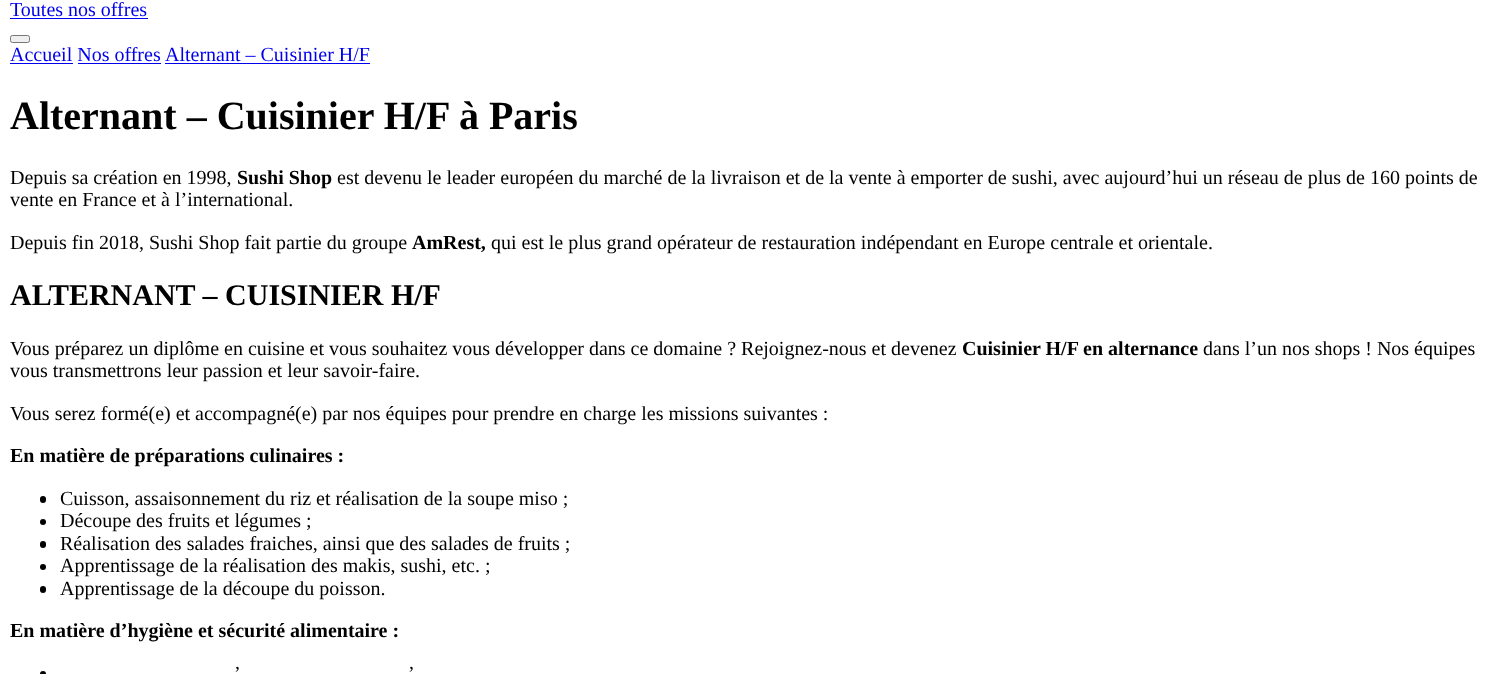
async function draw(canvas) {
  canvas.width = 1508
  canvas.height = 674
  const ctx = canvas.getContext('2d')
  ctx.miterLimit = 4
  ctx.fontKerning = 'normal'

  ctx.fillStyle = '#fff'
  ctx.fillRect(0, 0, 1508, 674)
  ctx.font = '20px Liberation Serif'
  ctx.fillStyle = '#00e'
  ctx.fillText('Toutes nos offres', 10, 16)
  ctx.fillRect(10, 18, 138, 1)
  ctx.fillStyle = '#efefef'
  ctx.beginPath()
  ctx.roundRect(10.5, 35.5, 19, 7, 2)
  ctx.fill()
  ctx.strokeStyle = '#767676'
  ctx.stroke()
  ctx.fillStyle = '#00e'
  ctx.fillText('Accueil Nos offres', 10, 61)
  ctx.fillRect(10, 63, 63, 1)
  ctx.fillText('Alternant – Cuisinier H/F', 165, 61)
  ctx.fillRect(165, 63, 205, 1)
  ctx.fillRect(78, 63, 83, 1)
  ctx.font = 'bold 40px Liberation Serif'
  ctx.fillStyle = '#000'
  ctx.fillText('Alternant – Cuisinier H/F à Paris', 10, 129)
  ctx.font = '20px Liberation Serif'
  ctx.fillText('Depuis sa création en 1998,', 10, 184)
  ctx.font = 'bold 20px Liberation Serif'
  ctx.fillText('Sushi Shop', 237, 184)
  ctx.font = '20px Liberation Serif'
  ctx.fillText('est devenu le leader européen du marché de la livraison et de la vente à emporter de sushi, avec aujourd’hui un réseau de plus de 160 points de', 337, 184)
  ctx.fillText('vente en France et à l’international.', 10, 206)
  ctx.fillText('Depuis fin 2018, Sushi Shop fait partie du groupe', 10, 249)
  ctx.font = 'bold 20px Liberation Serif'
  ctx.fillText('AmRest,', 412, 249)
  ctx.font = '20px Liberation Serif'
  ctx.fillText('qui est le plus grand opérateur de restauration indépendant en Europe centrale et orientale.', 491, 249)
  ctx.font = 'bold 30px Liberation Serif'
  ctx.fillText('ALTERNANT – CUISINIER H/F', 10, 305)
  ctx.font = '20px Liberation Serif'
  ctx.fillText('Vous préparez un diplôme en cuisine et vous souhaitez vous développer dans ce domaine ? Rejoignez-nous et devenez', 10, 355)
  ctx.font = 'bold 20px Liberation Serif'
  ctx.fillText('Cuisinier H/F en alternance', 962, 355)
  ctx.font = '20px Liberation Serif'
  ctx.fillText('dans l’un nos shops ! Nos équipes', 1203, 355)
  ctx.fillText('vous transmettrons leur passion et leur savoir-faire.', 10, 377)
  ctx.fillText('Vous serez formé(e) et accompagné(e) par nos équipes pour prendre en charge les missions suivantes :', 10, 420)
  ctx.font = 'bold 20px Liberation Serif'
  ctx.fillText('En matière de préparations culinaires :', 10, 462)
  ctx.beginPath()
  ctx.roundRect(40, 496, 6, 7, 3)
  ctx.fill()
  ctx.font = '20px Liberation Serif'
  ctx.fillText('Cuisson, assaisonnement du riz et réalisation de la soupe miso ;', 60, 505)
  ctx.beginPath()
  ctx.arc(43, 522, 3, 0, 2 * Math.PI)
  ctx.fill()
  ctx.fillText('Découpe des fruits et légumes ;', 60, 527)
  ctx.beginPath()
  ctx.roundRect(40, 541, 6, 7, 3)
  ctx.fill()
  ctx.fillText('Réalisation des salades fraiches, ainsi que des salades de fruits ;', 60, 550)
  ctx.beginPath()
  ctx.arc(43, 567, 3, 0, 2 * Math.PI)
  ctx.fill()
  ctx.fillText('Apprentissage de la réalisation des makis, sushi, etc. ;', 60, 572)
  ctx.beginPath()
  ctx.roundRect(40, 586, 6, 7, 3)
  ctx.fill()
  ctx.fillText('Apprentissage de la découpe du poisson.', 60, 595)
  ctx.font = 'bold 20px Liberation Serif'
  ctx.fillText('En matière d’hygiène et sécurité alimentaire :', 10, 637)
  ctx.font = '20px Liberation Serif'
  ctx.fillText('’', 234, 680)
  ctx.fillText('’', 408, 680)
  ctx.beginPath()
  ctx.arc(43, 674, 3, 0, 2 * Math.PI)
  ctx.fill()
}

draw(document.querySelector('canvas'))
